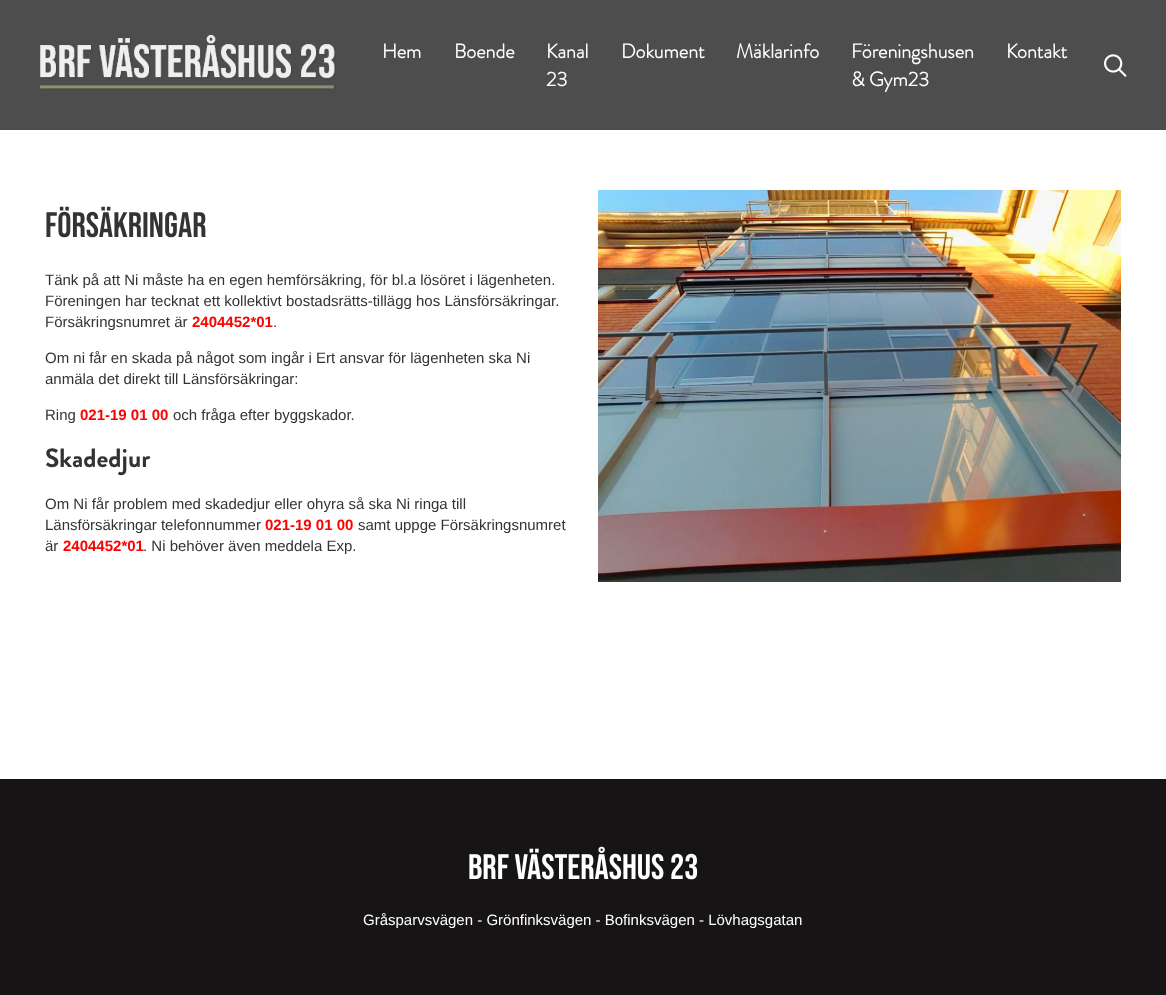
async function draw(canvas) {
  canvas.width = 1166
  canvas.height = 995
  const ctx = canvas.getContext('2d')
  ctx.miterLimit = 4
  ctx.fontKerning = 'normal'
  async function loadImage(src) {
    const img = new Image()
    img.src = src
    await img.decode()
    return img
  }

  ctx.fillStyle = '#fff'
  ctx.fillRect(0, 0, 1166, 995)
  ctx.fillStyle = '#4d4d4d'
  ctx.fillRect(0, 0, 1166, 130)
  ctx.drawImage(await loadImage('image0.png'), 40, 35, 296, 55)
  ctx.font = 'bold 20px "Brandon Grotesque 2"'
  ctx.fillStyle = '#fff'
  ctx.fillText('Hem', 382, 58)
  ctx.fillText('Boende', 454, 58)
  ctx.fillText('Kanal', 546, 58)
  ctx.fillText('23', 546, 86)
  ctx.fillText('Dokument', 621, 58)
  ctx.fillText('Mäklarinfo', 736, 58)
  ctx.fillText('Föreningshusen', 851, 58)
  ctx.fillText('& Gym23', 851, 86)
  ctx.fillText('Kontakt', 1006, 58)
  ctx.drawImage(await loadImage('image1.png'), 1104, 54, 23, 23)
  ctx.font = '35.5px Bebas Neue'
  ctx.fillStyle = '#333'
  ctx.fillText('Försäkringar', 45, 237)
  ctx.font = '15px Liberation Sans'
  ctx.fillText('Tänk på att Ni måste ha en egen hemförsäkring, för bl.a lösöret i lägenheten.', 45, 285)
  ctx.fillText('Föreningen har tecknat ett kollektivt bostadsrätts-tillägg hos Länsförsäkringar.', 45, 306)
  ctx.fillText('Försäkringsnumret är', 45, 327)
  ctx.font = 'bold 15px Liberation Sans'
  ctx.fillStyle = '#f00'
  ctx.fillText('2404452*01', 192, 327)
  ctx.font = '15px Liberation Sans'
  ctx.fillStyle = '#333'
  ctx.fillText('.', 273, 327)
  ctx.fillText('Om ni får en skada på något som ingår i Ert ansvar för lägenheten ska Ni', 45, 363)
  ctx.fillText('anmäla det direkt till Länsförsäkringar:', 45, 384)
  ctx.fillText('Ring', 45, 420)
  ctx.font = 'bold 15px Liberation Sans'
  ctx.fillStyle = '#f00'
  ctx.fillText('021-19 01 00', 80, 420)
  ctx.font = '15px Liberation Sans'
  ctx.fillStyle = '#333'
  ctx.fillText('och fråga efter byggskador.', 173, 420)
  ctx.font = 'bold 26.5px Brandon Grotesque'
  ctx.fillText('Skadedjur', 45, 467)
  ctx.font = '15px Liberation Sans'
  ctx.fillText('Om Ni får problem med skadedjur eller ohyra så ska Ni ringa till', 45, 509)
  ctx.fillText('Länsförsäkringar telefonnummer', 45, 530)
  ctx.font = 'bold 15px Liberation Sans'
  ctx.fillStyle = '#f00'
  ctx.fillText('021-19 01 00', 265, 530)
  ctx.font = '15px Liberation Sans'
  ctx.fillStyle = '#333'
  ctx.fillText('samt uppge Försäkringsnumret', 358, 530)
  ctx.fillText('är', 45, 551)
  ctx.font = 'bold 15px Liberation Sans'
  ctx.fillStyle = '#f00'
  ctx.fillText('2404452*01', 63, 551)
  ctx.font = '15px Liberation Sans'
  ctx.fillStyle = '#333'
  ctx.fillText('. Ni behöver även meddela Exp.', 143, 551)
  ctx.drawImage(await loadImage('image2.png'), 598, 190, 523, 392)
  ctx.fillStyle = '#171415'
  ctx.fillRect(0, 779, 1166, 216)
  ctx.font = '35.5px Bebas Neue'
  ctx.fillStyle = '#fff'
  ctx.fillText('BRF VÄSTERÅSHUS 23', 468, 879)
  ctx.font = '15px Liberation Sans'
  ctx.fillText('Gråsparvsvägen - Grönfinksvägen - Bofinksvägen - Lövhagsgatan', 363, 925)
}

draw(document.querySelector('canvas'))
